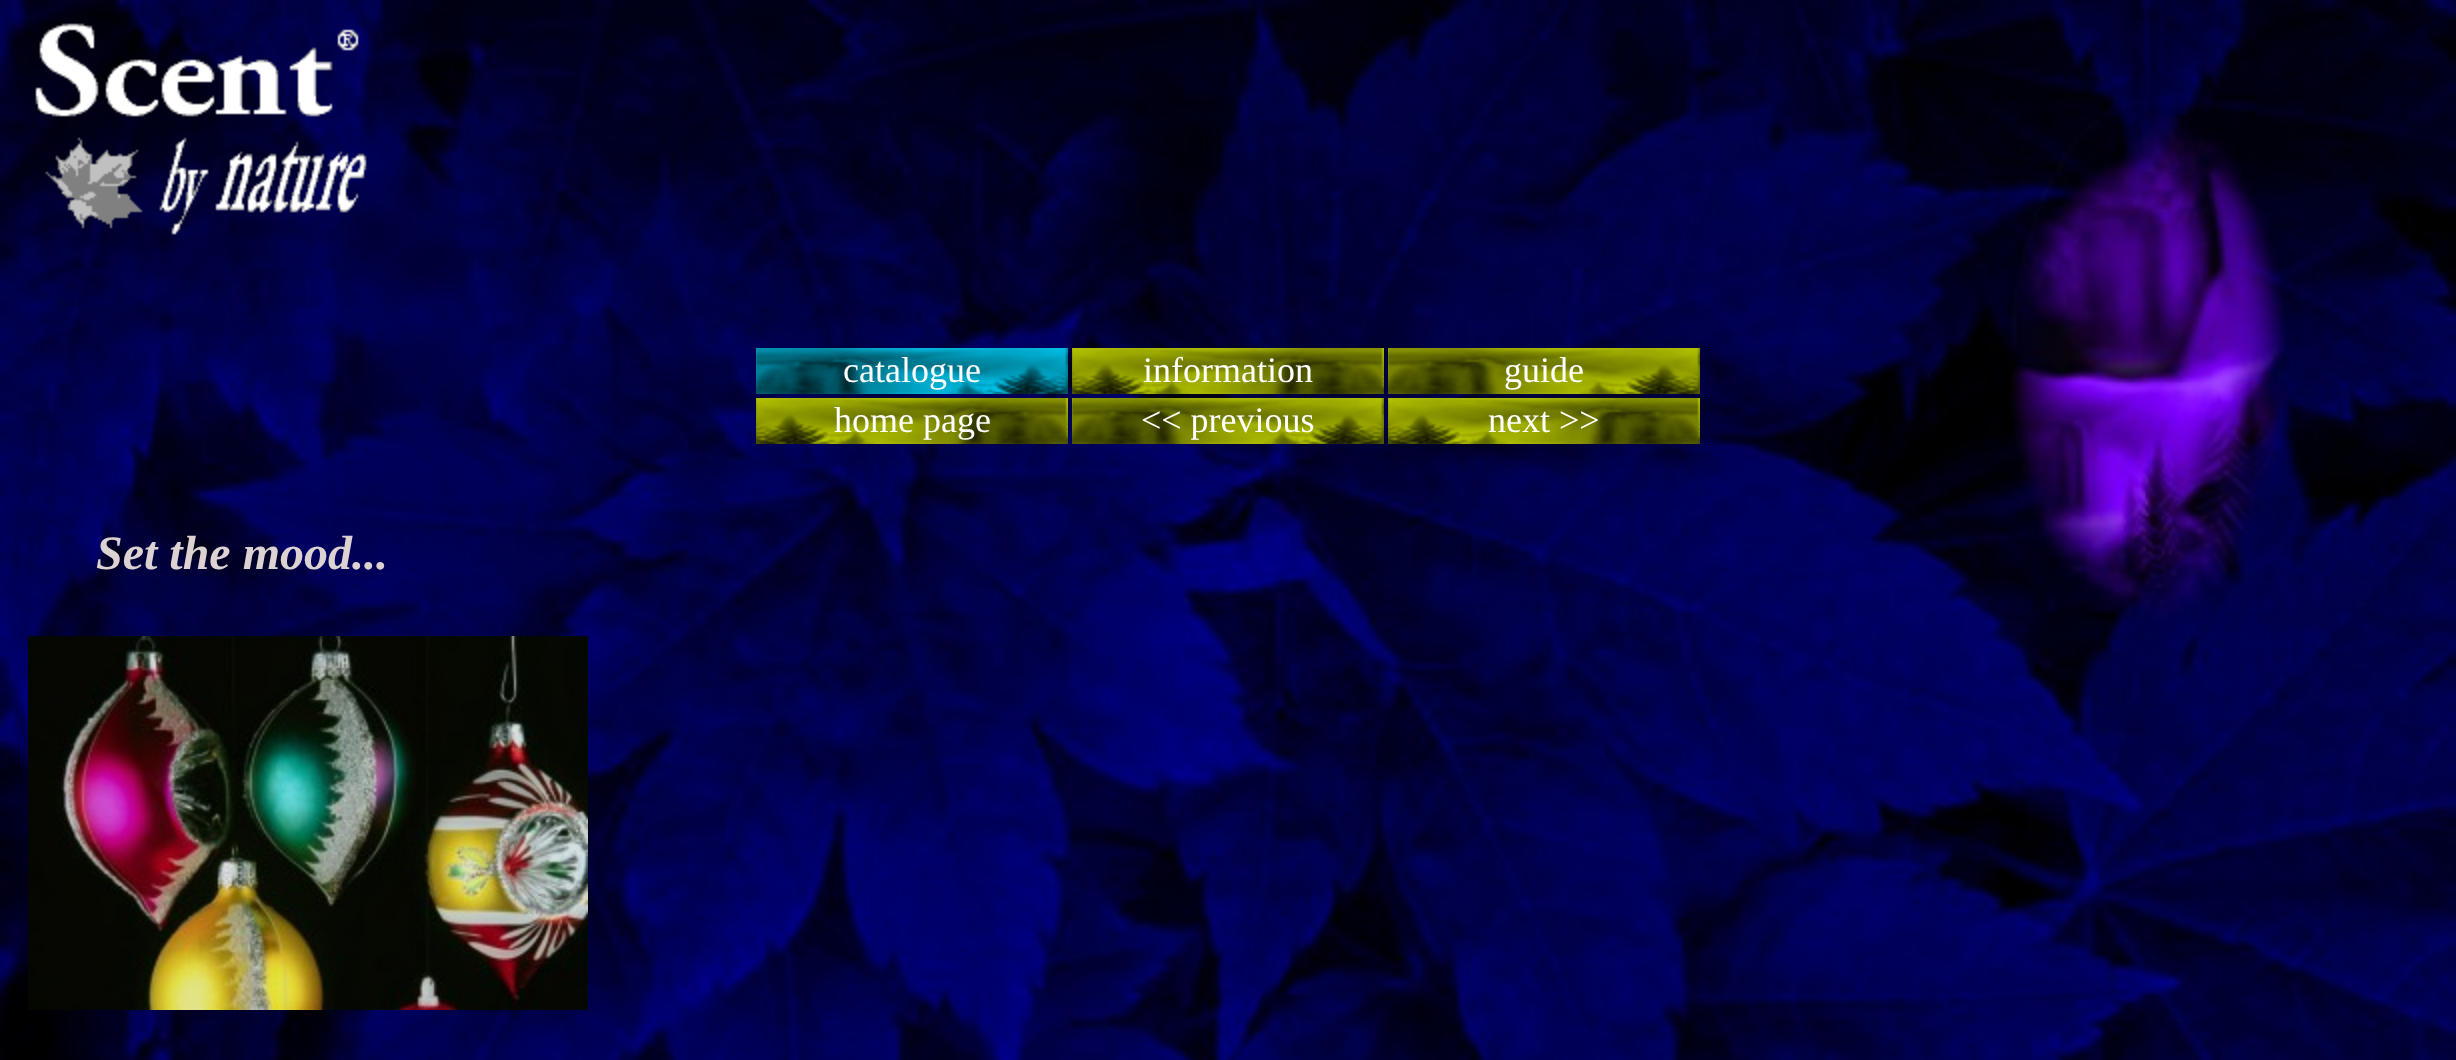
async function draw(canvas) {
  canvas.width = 2456
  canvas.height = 1060
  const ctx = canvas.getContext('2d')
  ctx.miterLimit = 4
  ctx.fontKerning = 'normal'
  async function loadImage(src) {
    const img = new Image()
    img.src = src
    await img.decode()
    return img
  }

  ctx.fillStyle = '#fff'
  ctx.fillRect(0, 0, 2456, 1060)
  ctx.drawImage(await loadImage('image0.png'), 0, 0, 2456, 1060)
  ctx.drawImage(await loadImage('image1.png'), 35, 23, 332, 212)
  ctx.drawImage(await loadImage('image2.png'), 756, 348, 312, 46)
  ctx.font = '36px Liberation Serif'
  ctx.fillText('catalogue', 843, 382)
  ctx.drawImage(await loadImage('image3.png'), 1072, 348, 312, 46)
  ctx.fillText('information', 1143, 382)
  ctx.drawImage(await loadImage('image4.png'), 1388, 348, 312, 46)
  ctx.fillText('guide', 1504, 382)
  ctx.drawImage(await loadImage('image3.png'), 756, 398, 312, 46)
  ctx.fillText('home page', 834, 432)
  ctx.drawImage(await loadImage('image4.png'), 1072, 398, 312, 46)
  ctx.fillText('<< previous', 1141, 432)
  ctx.drawImage(await loadImage('image3.png'), 1388, 398, 312, 46)
  ctx.fillText('next >>', 1488, 432)
  ctx.font = 'italic bold 48px Liberation Serif'
  ctx.fillStyle = '#ddd2d2'
  ctx.fillText('Set the mood...', 96, 569)
  ctx.drawImage(await loadImage('image5.png'), 28, 636, 560, 374)
}

draw(document.querySelector('canvas'))
